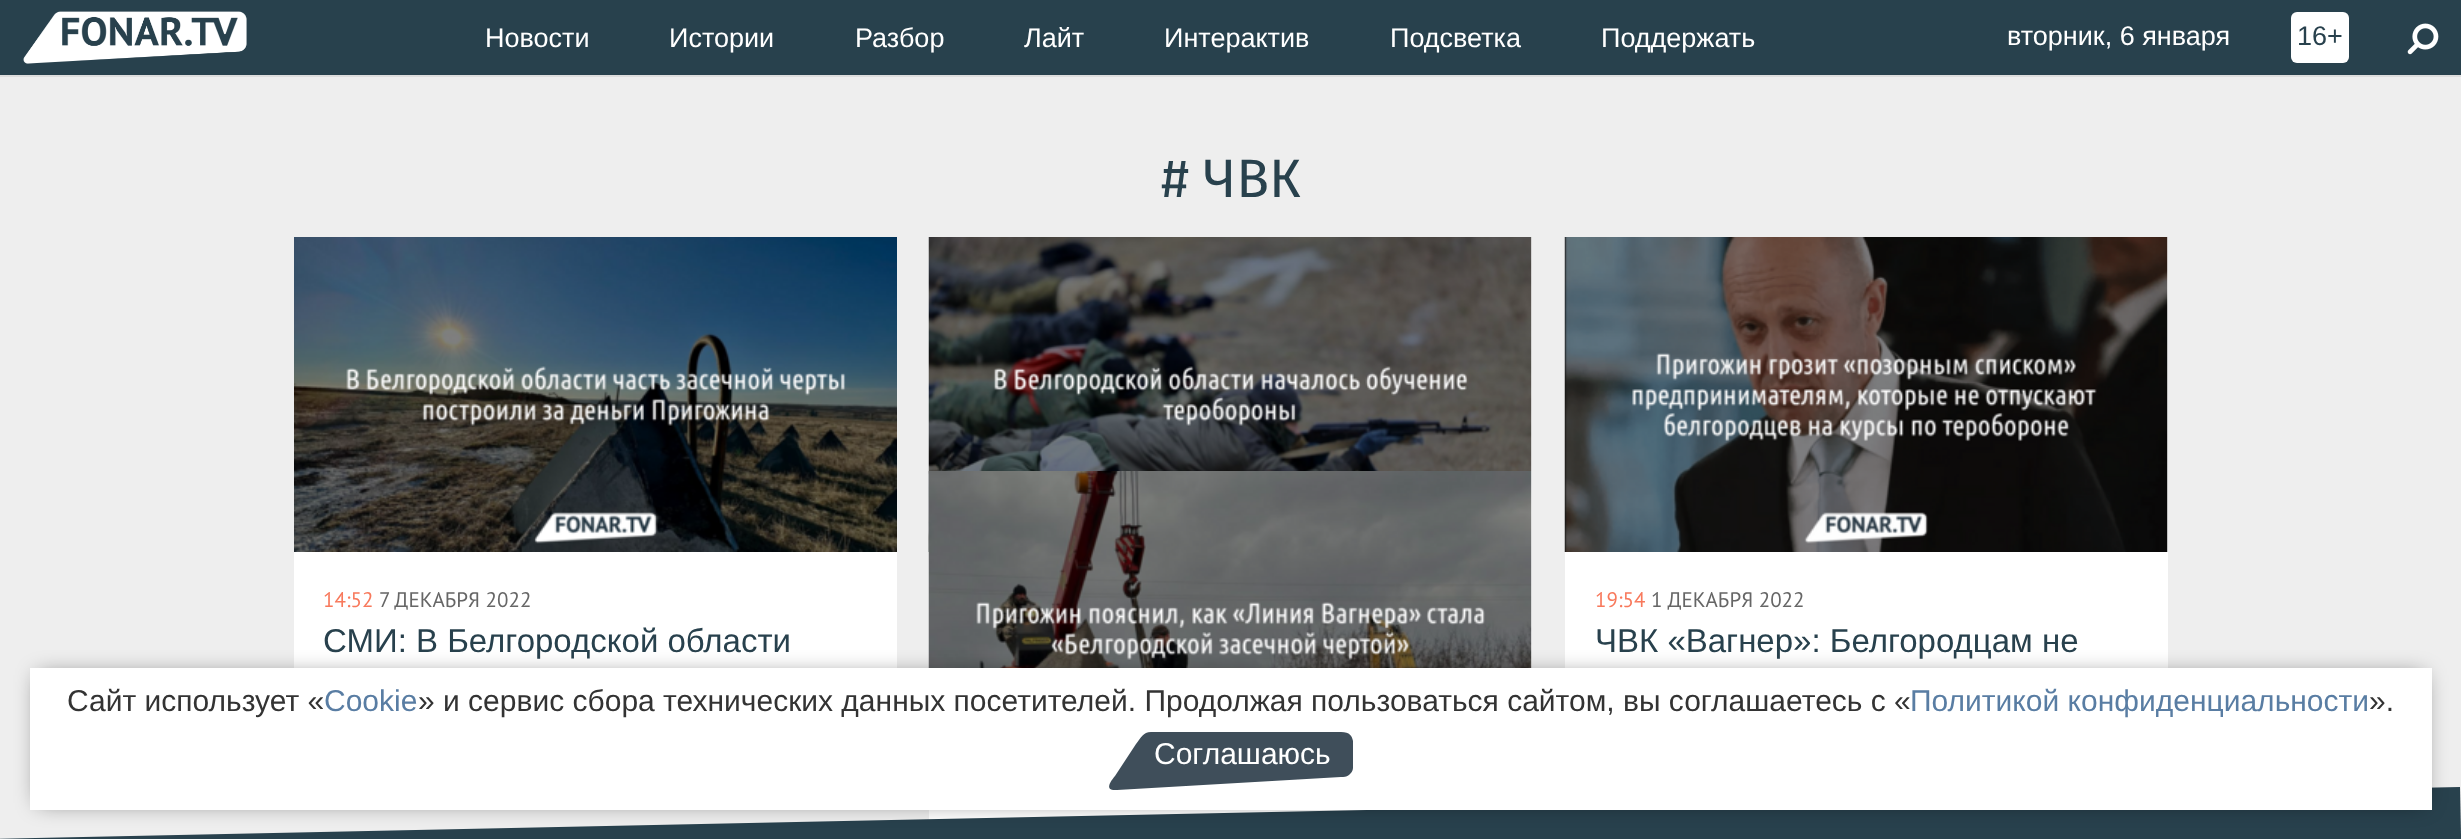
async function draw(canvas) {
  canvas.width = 2461
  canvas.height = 839
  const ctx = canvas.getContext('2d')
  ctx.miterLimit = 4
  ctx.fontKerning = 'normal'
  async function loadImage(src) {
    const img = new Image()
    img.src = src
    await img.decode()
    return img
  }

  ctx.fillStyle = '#eee'
  ctx.fillRect(0, 0, 2461, 839)
  ctx.fillStyle = '#28414d'
  ctx.fillRect(0, 0, 2461, 75)
  ctx.drawImage(await loadImage('image0.png'), 23, 11, 224, 53)
  ctx.font = '27px Arimo'
  ctx.fillStyle = '#fff'
  ctx.fillText('Новости', 485, 47)
  ctx.fillText('Истории', 669, 47)
  ctx.fillText('Разбор', 855, 47)
  ctx.fillText('Лайт', 1024, 47)
  ctx.fillText('Интерактив', 1164, 47)
  ctx.fillText('Подсветка', 1390, 47)
  ctx.fillText('Поддержать', 1601, 47)
  ctx.fillText('вторник, 6 января', 2007, 45)
  ctx.beginPath()
  ctx.roundRect(2291, 12, 58, 51, 6)
  ctx.fill()
  ctx.fillStyle = '#28414d'
  ctx.fillText('16+', 2297, 45)
  ctx.drawImage(await loadImage('image1.png'), 2407, 23, 32, 32)
  ctx.fillStyle = '#ddd'
  ctx.fillRect(0, 75, 2461, 2)
  ctx.font = '54px Fira Sans'
  ctx.fillStyle = '#28414d'
  ctx.fillText('# ЧВК', 1161, 197)
  ctx.fillStyle = '#fff'
  ctx.fillRect(1531, 237, 1, 234)
  ctx.drawImage(await loadImage('image2.png'), 928, 237, 604, 315)
  ctx.fillRect(294, 552, 603, 116)
  ctx.drawImage(await loadImage('image3.png'), 294, 237, 603, 315)
  ctx.font = '21px PT Sans'
  ctx.fillStyle = '#f8795c'
  ctx.fillText('14:52', 323, 607)
  ctx.fillStyle = '#666'
  ctx.fillText('7 ДЕКАБРЯ 2022', 379, 607)
  ctx.font = '33px Arimo'
  ctx.fillStyle = '#28414d'
  ctx.fillText('СМИ: В Белгородской области', 323, 652)
  ctx.fillStyle = '#fff'
  ctx.fillRect(929, 471, 603, 349)
  ctx.drawImage(await loadImage('image4.png'), 928, 471, 604, 197)
  ctx.fillRect(1565, 237, 603, 431)
  ctx.drawImage(await loadImage('image5.png'), 1564, 237, 604, 315)
  ctx.font = '21px PT Sans'
  ctx.fillStyle = '#f8795c'
  ctx.fillText('19:54', 1595, 607)
  ctx.fillStyle = '#666'
  ctx.fillText('1 ДЕКАБРЯ 2022', 1651, 607)
  ctx.font = '33px Arimo'
  ctx.fillStyle = '#28414d'
  ctx.fillText('ЧВК «Вагнер»: Белгородцам не', 1595, 652)
  ctx.beginPath()
  ctx.moveTo(-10, 839)
  ctx.lineTo(2460, 787)
  ctx.lineTo(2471, 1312)
  ctx.lineTo(1, 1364)
  ctx.closePath()
  ctx.fill()
  ctx.fillStyle = '#00000080'
  ctx.filter = 'blur(11px)'
  ctx.beginPath()
  ctx.rect(38, 675, 2386, 128)
  ctx.fill()
  ctx.filter = 'none'
  ctx.fillStyle = '#fff'
  ctx.fillRect(30, 668, 2402, 142)
  ctx.font = '30px Arimo'
  ctx.fillStyle = '#333'
  ctx.fillText('Сайт использует «', 67, 711)
  ctx.fillStyle = '#597da3'
  ctx.fillText('Cookie', 324, 711)
  ctx.fillStyle = '#333'
  ctx.fillText('» и сервис сбора технических данных посетителей. Продолжая пользоваться сайтом, вы соглашаетесь с «', 418, 711)
  ctx.fillStyle = '#597da3'
  ctx.fillText('Политикой конфиденциальности', 1910, 711)
  ctx.fillStyle = '#333'
  ctx.fillText('».', 2369, 711)
  ctx.fillStyle = '#3f4e5a'
  ctx.beginPath()
  ctx.moveTo(1341, 732)
  ctx.bezierCurveTo(1350, 732, 1352, 736, 1353, 741)
  ctx.lineTo(1353, 768)
  ctx.bezierCurveTo(1353, 771, 1351, 773, 1349, 775)
  ctx.bezierCurveTo(1346, 777, 1344, 777, 1341, 777)
  ctx.lineTo(1117, 790)
  ctx.bezierCurveTo(1104, 791, 1110, 782, 1115, 776)
  ctx.lineTo(1136, 744)
  ctx.bezierCurveTo(1141, 738, 1143, 732, 1151, 732)
  ctx.closePath()
  ctx.fill()
  ctx.fillStyle = '#fff'
  ctx.fillText('Соглашаюсь', 1154, 764)
}

draw(document.querySelector('canvas'))
